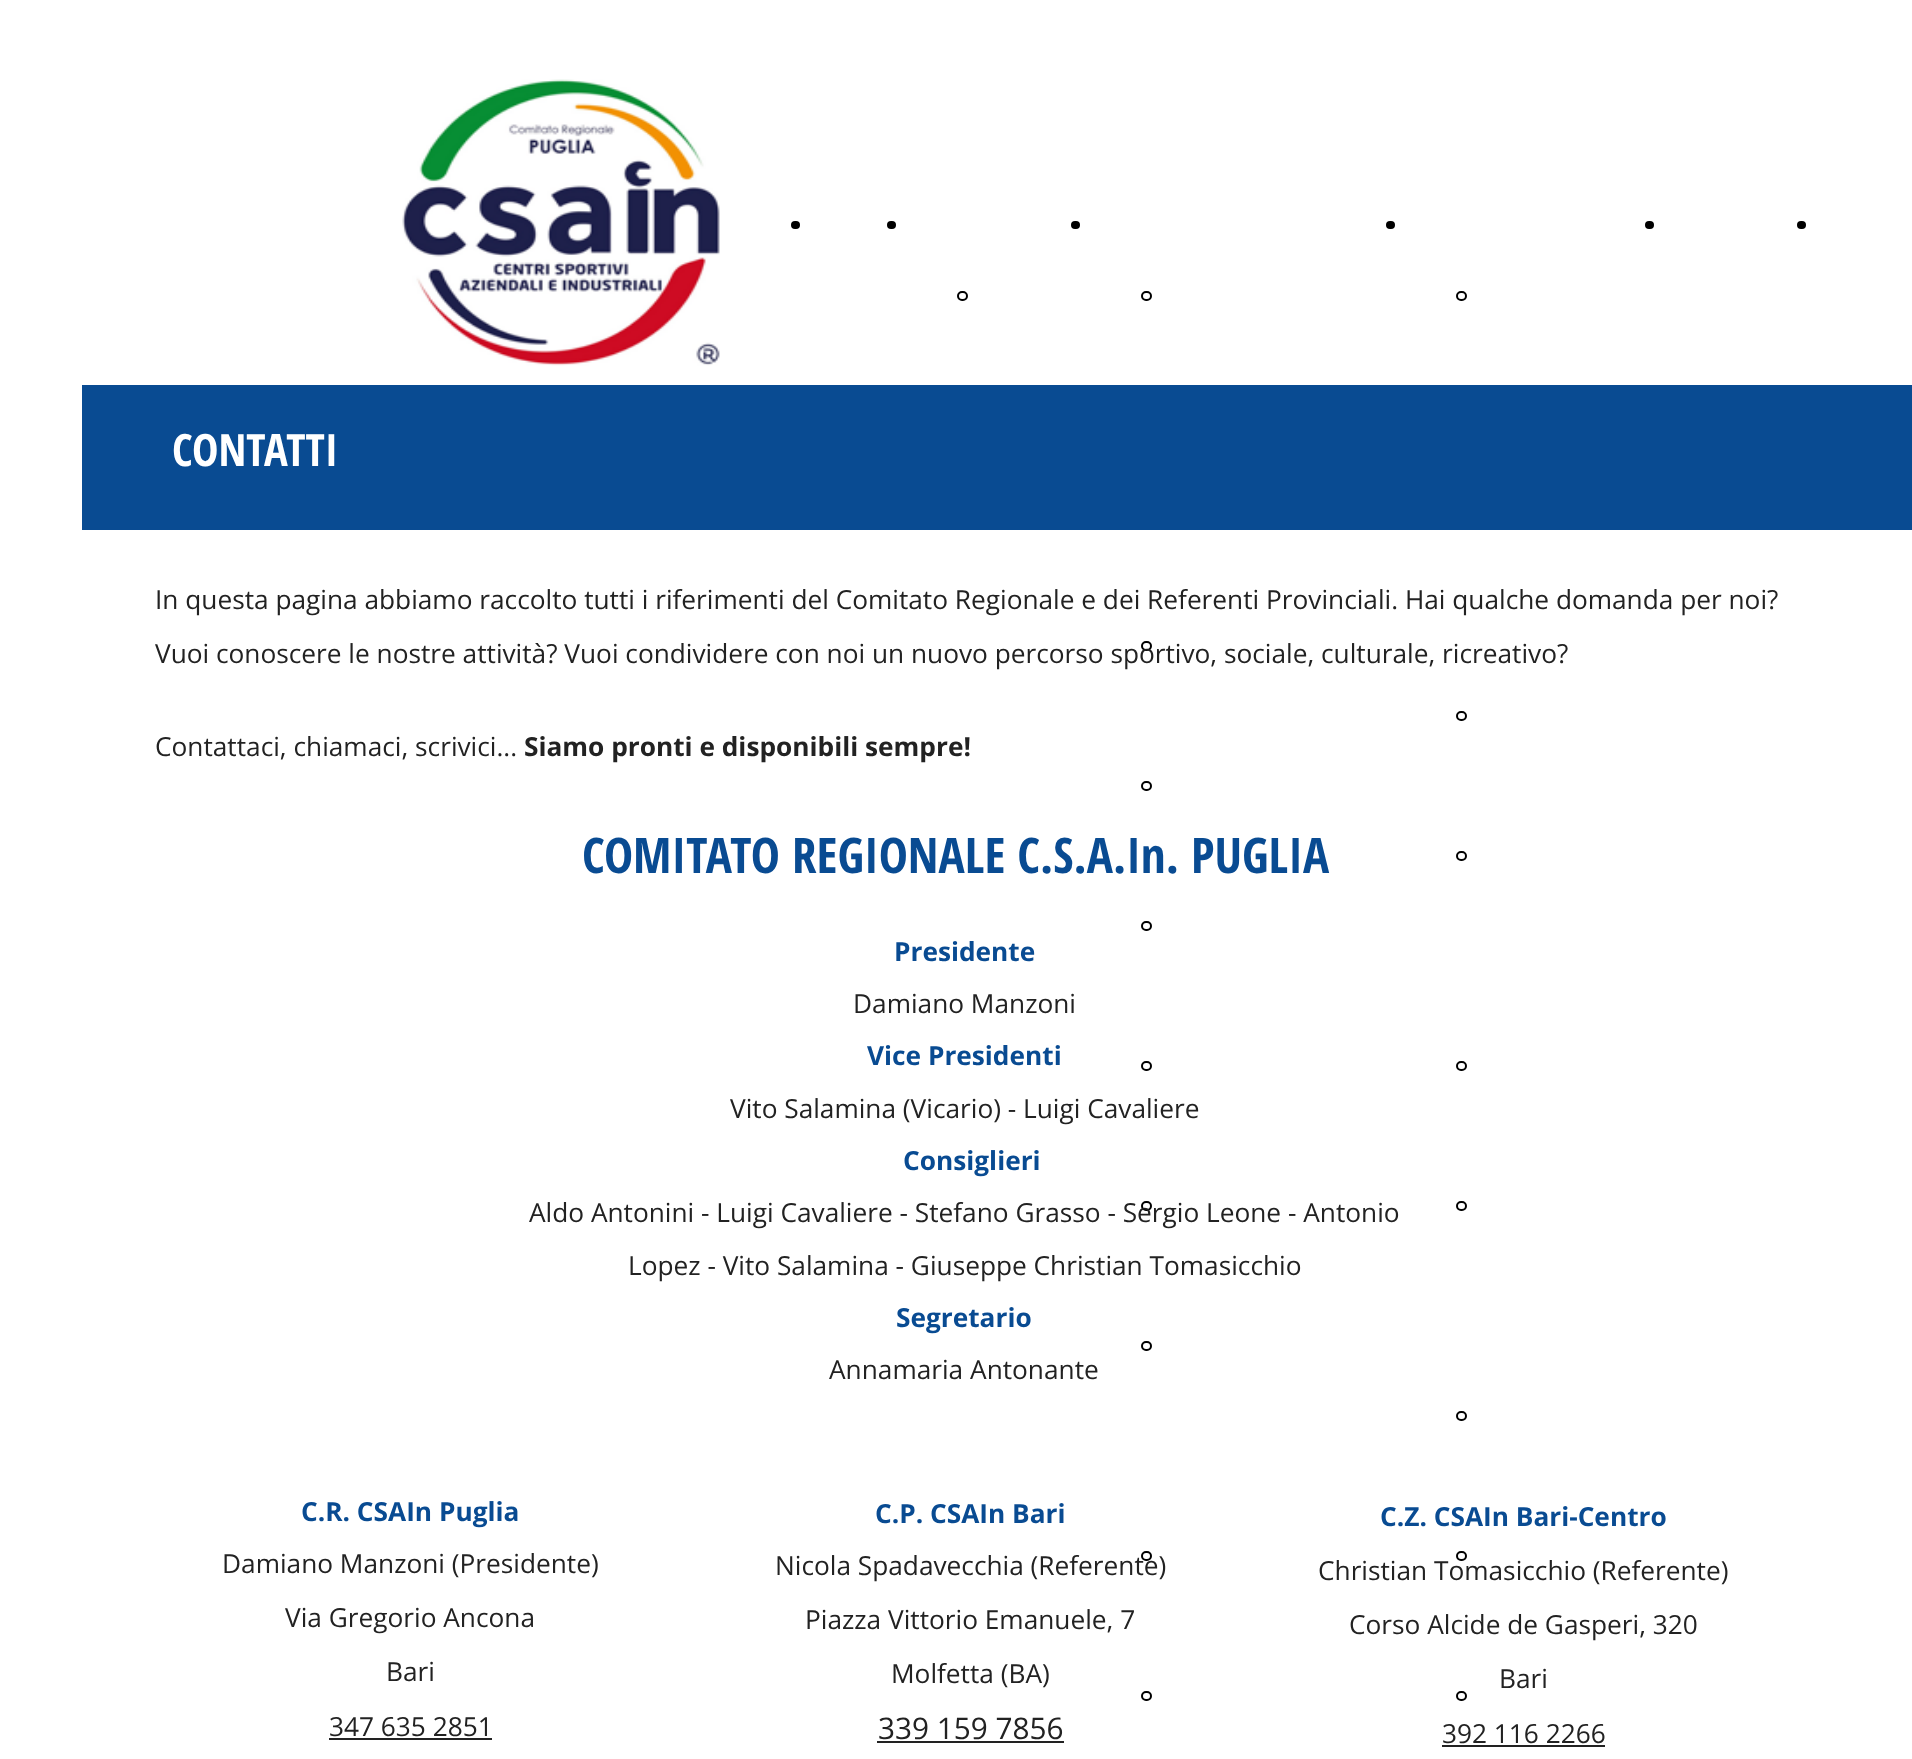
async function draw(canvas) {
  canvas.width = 1912
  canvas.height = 1759
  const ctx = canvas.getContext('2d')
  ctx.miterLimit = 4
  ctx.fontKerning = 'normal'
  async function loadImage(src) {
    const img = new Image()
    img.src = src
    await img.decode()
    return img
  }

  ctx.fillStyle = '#fff'
  ctx.fillRect(0, 0, 1912, 1759)
  ctx.drawImage(await loadImage('image0.png'), 402, 79, 318, 287)
  ctx.fillStyle = '#000'
  ctx.beginPath()
  ctx.roundRect(791, 221, 9, 8, 4)
  ctx.fill()
  ctx.beginPath()
  ctx.roundRect(887, 221, 9, 8, 4)
  ctx.fill()
  ctx.beginPath()
  ctx.roundRect(958, 292, 9, 8, 4)
  ctx.strokeStyle = '#000'
  ctx.lineWidth = 2
  ctx.stroke()
  ctx.beginPath()
  ctx.roundRect(1071, 221, 9, 8, 4)
  ctx.fill()
  ctx.beginPath()
  ctx.roundRect(1142, 292, 9, 8, 4)
  ctx.stroke()
  ctx.beginPath()
  ctx.roundRect(1142, 642, 9, 8, 4)
  ctx.stroke()
  ctx.beginPath()
  ctx.roundRect(1142, 782, 9, 8, 4)
  ctx.stroke()
  ctx.beginPath()
  ctx.roundRect(1142, 922, 9, 8, 4)
  ctx.stroke()
  ctx.beginPath()
  ctx.roundRect(1142, 1062, 9, 8, 4)
  ctx.stroke()
  ctx.beginPath()
  ctx.roundRect(1142, 1202, 9, 8, 4)
  ctx.stroke()
  ctx.beginPath()
  ctx.roundRect(1142, 1342, 9, 8, 4)
  ctx.stroke()
  ctx.beginPath()
  ctx.roundRect(1142, 1552, 9, 8, 4)
  ctx.stroke()
  ctx.beginPath()
  ctx.roundRect(1142, 1692, 9, 8, 4)
  ctx.stroke()
  ctx.beginPath()
  ctx.roundRect(1386, 221, 9, 8, 4)
  ctx.fill()
  ctx.beginPath()
  ctx.roundRect(1457, 292, 9, 8, 4)
  ctx.stroke()
  ctx.beginPath()
  ctx.roundRect(1457, 712, 9, 8, 4)
  ctx.stroke()
  ctx.beginPath()
  ctx.roundRect(1457, 852, 9, 8, 4)
  ctx.stroke()
  ctx.beginPath()
  ctx.roundRect(1457, 1062, 9, 8, 4)
  ctx.stroke()
  ctx.beginPath()
  ctx.roundRect(1457, 1202, 9, 8, 4)
  ctx.stroke()
  ctx.beginPath()
  ctx.roundRect(1457, 1412, 9, 8, 4)
  ctx.stroke()
  ctx.beginPath()
  ctx.roundRect(1457, 1552, 9, 8, 4)
  ctx.stroke()
  ctx.beginPath()
  ctx.roundRect(1457, 1692, 9, 8, 4)
  ctx.stroke()
  ctx.beginPath()
  ctx.roundRect(1645, 221, 9, 8, 4)
  ctx.fill()
  ctx.beginPath()
  ctx.roundRect(1797, 221, 9, 8, 4)
  ctx.fill()
  ctx.fillStyle = '#094b92'
  ctx.fillRect(82, 385, 1830, 145)
  ctx.font = 'bold 44.5px Open Sans Condensed'
  ctx.fillStyle = '#fff'
  ctx.fillText('CONTATTI', 172, 466)
  ctx.font = '26.25px Open Sans'
  ctx.fillStyle = '#222'
  ctx.fillText('In questa pagina abbiamo raccolto tutti i riferimenti del Comitato Regionale e dei Referenti Provinciali. Hai qualche domanda per noi?', 155, 609)
  ctx.fillText('Vuoi conoscere le nostre attività? Vuoi condividere con noi un nuovo percorso sportivo, sociale, culturale, ricreativo?', 155, 663)
  ctx.fillText('Contattaci, chiamaci, scrivici...', 155, 756)
  ctx.font = 'bold 26.25px Open Sans'
  ctx.fillText('Siamo pronti e disponibili sempre!', 524, 756)
  ctx.font = 'bold 49px Open Sans Condensed'
  ctx.fillStyle = '#094b92'
  ctx.fillText('COMITATO REGIONALE C.S.A.In. PUGLIA', 582, 873)
  ctx.font = 'bold 26.25px Open Sans'
  ctx.fillText('Presidente', 894, 961)
  ctx.font = '26.25px Open Sans'
  ctx.fillStyle = '#222'
  ctx.fillText('Damiano Manzoni', 853, 1013)
  ctx.font = 'bold 26.25px Open Sans'
  ctx.fillStyle = '#094b92'
  ctx.fillText('Vice Presidenti', 867, 1065)
  ctx.font = '26.25px Open Sans'
  ctx.fillStyle = '#222'
  ctx.fillText('Vito Salamina (Vicario) - Luigi Cavaliere', 730, 1118)
  ctx.font = 'bold 26.25px Open Sans'
  ctx.fillStyle = '#094b92'
  ctx.fillText('Consiglieri', 903, 1170)
  ctx.font = '26.25px Open Sans'
  ctx.fillStyle = '#222'
  ctx.fillText('Aldo Antonini - Luigi Cavaliere - Stefano Grasso - Sergio Leone - Antonio', 529, 1222)
  ctx.fillText('Lopez - Vito Salamina - Giuseppe Christian Tomasicchio', 628, 1275)
  ctx.font = 'bold 26.25px Open Sans'
  ctx.fillStyle = '#094b92'
  ctx.fillText('Segretario', 896, 1327)
  ctx.font = '26.25px Open Sans'
  ctx.fillStyle = '#222'
  ctx.fillText('Annamaria Antonante', 829, 1379)
  ctx.font = 'bold 26.25px Open Sans'
  ctx.fillStyle = '#094b92'
  ctx.fillText('C.R. CSAIn Puglia', 301, 1521)
  ctx.font = '26.25px Open Sans'
  ctx.fillStyle = '#222'
  ctx.fillText('Damiano Manzoni (Presidente)', 222, 1573)
  ctx.fillText('Via Gregorio Ancona', 285, 1627)
  ctx.fillText('Bari', 386, 1681)
  ctx.fillText('347 635 2851', 329, 1736)
  ctx.fillRect(329, 1738, 163, 2)
  ctx.font = 'bold 26.25px Open Sans'
  ctx.fillStyle = '#094b92'
  ctx.fillText('C.P. CSAIn Bari', 875, 1523)
  ctx.font = '26.25px Open Sans'
  ctx.fillStyle = '#222'
  ctx.fillText('Nicola Spadavecchia (Referente)', 775, 1575)
  ctx.fillText('Piazza Vittorio Emanuele, 7', 805, 1629)
  ctx.fillText('Molfetta (BA)', 891, 1683)
  ctx.font = '29.75px Open Sans'
  ctx.fillText('339 159 7856', 878, 1739)
  ctx.fillRect(877, 1741, 187, 2)
  ctx.font = 'bold 26.25px Open Sans'
  ctx.fillStyle = '#094b92'
  ctx.fillText('C.Z. CSAIn Bari-Centro', 1380, 1526)
  ctx.font = '26.25px Open Sans'
  ctx.fillStyle = '#222'
  ctx.fillText('Christian Tomasicchio (Referente)', 1318, 1580)
  ctx.fillText('Corso Alcide de Gasperi, 320', 1349, 1634)
  ctx.fillText('Bari', 1499, 1688)
  ctx.fillText('392 116 2266', 1442, 1743)
  ctx.fillRect(1442, 1745, 163, 2)
}

draw(document.querySelector('canvas'))
